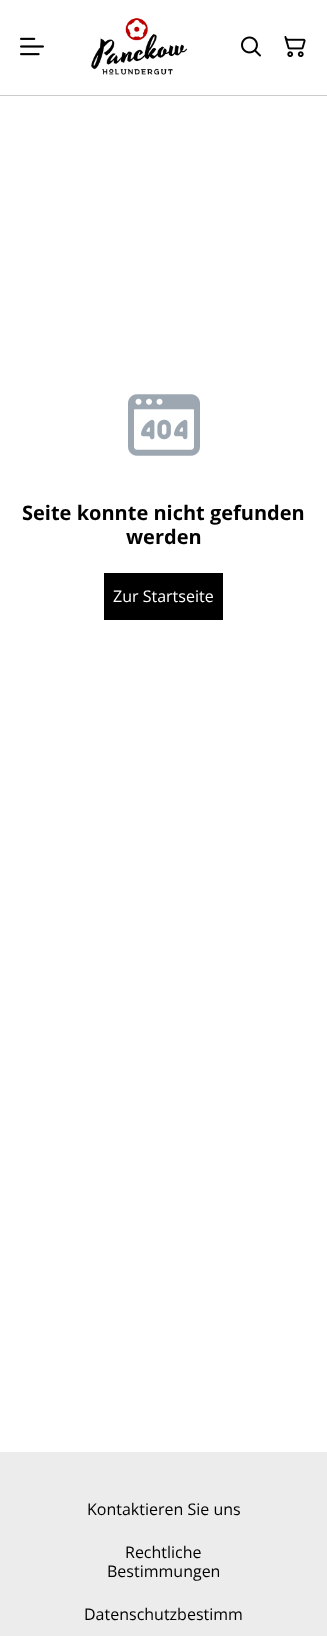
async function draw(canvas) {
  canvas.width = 327
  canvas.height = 1636
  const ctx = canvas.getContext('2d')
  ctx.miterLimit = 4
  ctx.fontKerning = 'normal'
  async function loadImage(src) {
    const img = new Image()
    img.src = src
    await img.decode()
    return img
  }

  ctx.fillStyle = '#fff'
  ctx.fillRect(0, 0, 327, 1636)
  ctx.fillStyle = '#ccc'
  ctx.fillRect(0, 95, 327, 1)
  ctx.drawImage(await loadImage('image0.png'), 20, 37, 24, 19)
  ctx.drawImage(await loadImage('image1.png'), 91, 18, 97, 57)
  ctx.drawImage(await loadImage('image2.png'), 241, 36, 20, 21)
  ctx.drawImage(await loadImage('image3.png'), 284, 35, 22, 22)
  ctx.drawImage(await loadImage('image4.png'), 128, 394, 72, 62)
  ctx.font = 'bold 20px Open Sans'
  ctx.fillStyle = '#000'
  ctx.fillText('Seite konnte nicht gefunden', 22, 520)
  ctx.fillText('werden', 126, 544)
  ctx.fillRect(104, 573, 119, 47)
  ctx.font = '16px Open Sans'
  ctx.fillStyle = '#fff'
  ctx.fillText('Zur Startseite', 113, 602)
  ctx.fillStyle = '#ececec'
  ctx.fillRect(0, 1452, 327, 184)
  ctx.fillStyle = '#000'
  ctx.fillText('Kontaktieren Sie uns', 87, 1515)
  ctx.fillText('Rechtliche', 125, 1558)
  ctx.fillText('Bestimmungen', 107, 1577)
  ctx.fillText('Datenschutzbestimm', 84, 1620)
}

draw(document.querySelector('canvas'))
